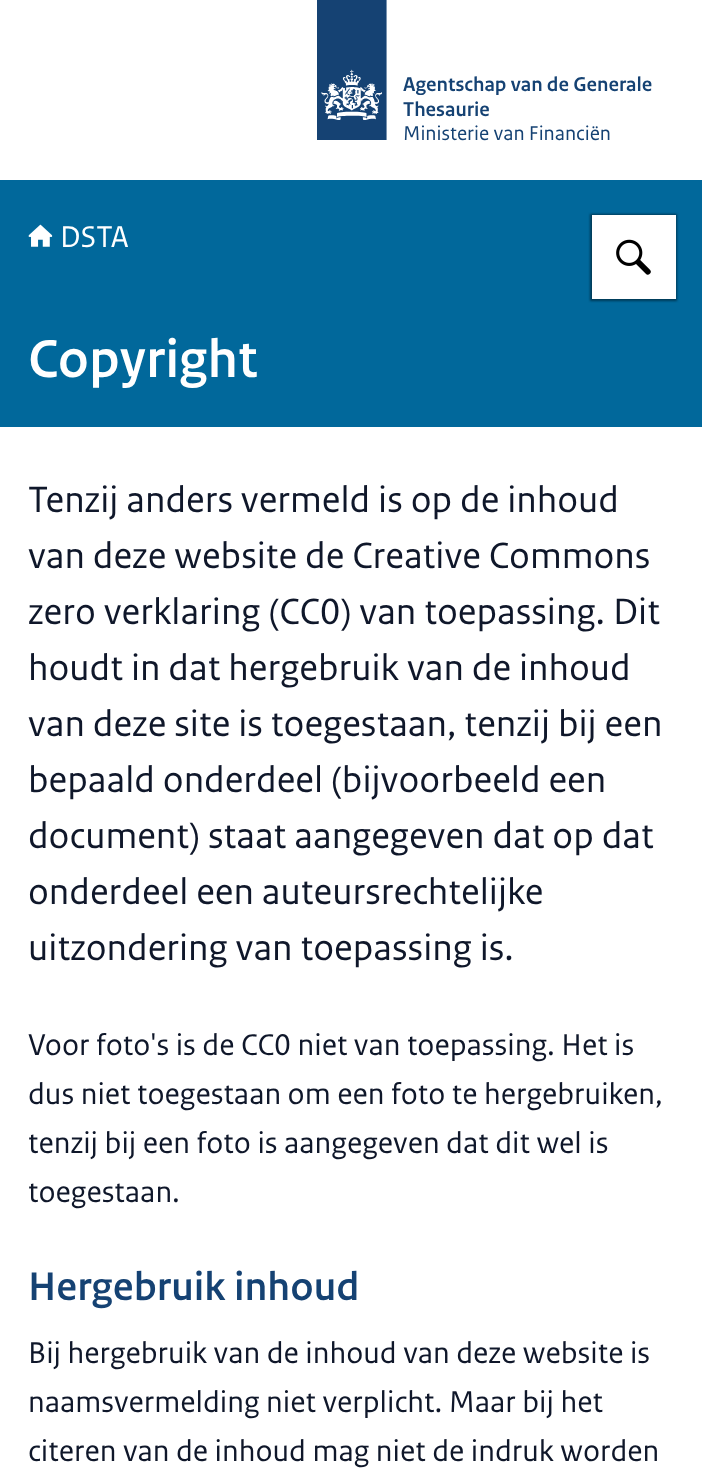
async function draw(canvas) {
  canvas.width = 702
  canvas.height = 1482
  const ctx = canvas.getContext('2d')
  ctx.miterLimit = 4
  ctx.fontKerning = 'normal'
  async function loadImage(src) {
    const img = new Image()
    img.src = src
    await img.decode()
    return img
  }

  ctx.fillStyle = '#fff'
  ctx.fillRect(0, 0, 702, 1482)
  ctx.drawImage(await loadImage('image0.png'), 317, 0, 70, 140)
  ctx.font = '600 21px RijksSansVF'
  ctx.fillStyle = '#154273'
  ctx.fillText('Agentschap van de Generale', 403, 91)
  ctx.fillText('Thesaurie', 403, 116)
  ctx.font = '21px RijksSansVF'
  ctx.fillText('Ministerie van Financiën', 403, 140)
  ctx.fillStyle = '#01689b'
  ctx.fillRect(0, 180, 702, 247)
  ctx.drawImage(await loadImage('image1.png'), 28, 224, 25, 23)
  ctx.font = '31.5px RijksSansVF'
  ctx.fillStyle = '#fff'
  ctx.fillText('DSTA', 60, 247)
  ctx.fillStyle = '#00000070'
  ctx.filter = 'blur(1px)'
  ctx.beginPath()
  ctx.rect(590, 214, 87, 87)
  ctx.fill()
  ctx.filter = 'none'
  ctx.fillStyle = '#fff'
  ctx.fillRect(592, 215, 84, 84)
  ctx.drawImage(await loadImage('image2.png'), 616, 239, 35, 36)
  ctx.font = '600 56px "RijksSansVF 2"'
  ctx.fillText('Copyright', 28, 377)
  ctx.font = '38.5px RijksSansVF'
  ctx.fillStyle = '#0f172a'
  ctx.fillText('Tenzij anders vermeld is op de inhoud', 28, 512)
  ctx.fillText('van deze website de Creative Commons', 28, 568)
  ctx.fillText('zero verklaring (CC0) van toepassing. Dit', 28, 624)
  ctx.fillText('houdt in dat hergebruik van de inhoud', 28, 680)
  ctx.fillText('van deze site is toegestaan, tenzij bij een', 28, 736)
  ctx.fillText('bepaald onderdeel (bijvoorbeeld een', 28, 792)
  ctx.fillText('document) staat aangegeven dat op dat', 28, 848)
  ctx.fillText('onderdeel een auteursrechtelijke', 28, 904)
  ctx.fillText('uitzondering van toepassing is.', 28, 960)
  ctx.font = '31.5px RijksSansVF'
  ctx.fillText('Voor foto\'s is de CC0 niet van toepassing. Het is', 28, 1055)
  ctx.fillText('dus niet toegestaan om een foto te hergebruiken,', 28, 1104)
  ctx.fillText('tenzij bij een foto is aangegeven dat dit wel is', 28, 1153)
  ctx.fillText('toegestaan.', 28, 1202)
  ctx.font = '600 42px "RijksSansVF 2"'
  ctx.fillStyle = '#154273'
  ctx.fillText('Hergebruik inhoud', 28, 1300)
  ctx.font = '31.5px RijksSansVF'
  ctx.fillStyle = '#0f172a'
  ctx.fillText('Bij hergebruik van de inhoud van deze website is', 28, 1363)
  ctx.fillText('naamsvermelding niet verplicht. Maar bij het', 28, 1412)
  ctx.fillText('citeren van de inhoud mag niet de indruk worden', 28, 1461)
}

draw(document.querySelector('canvas'))
